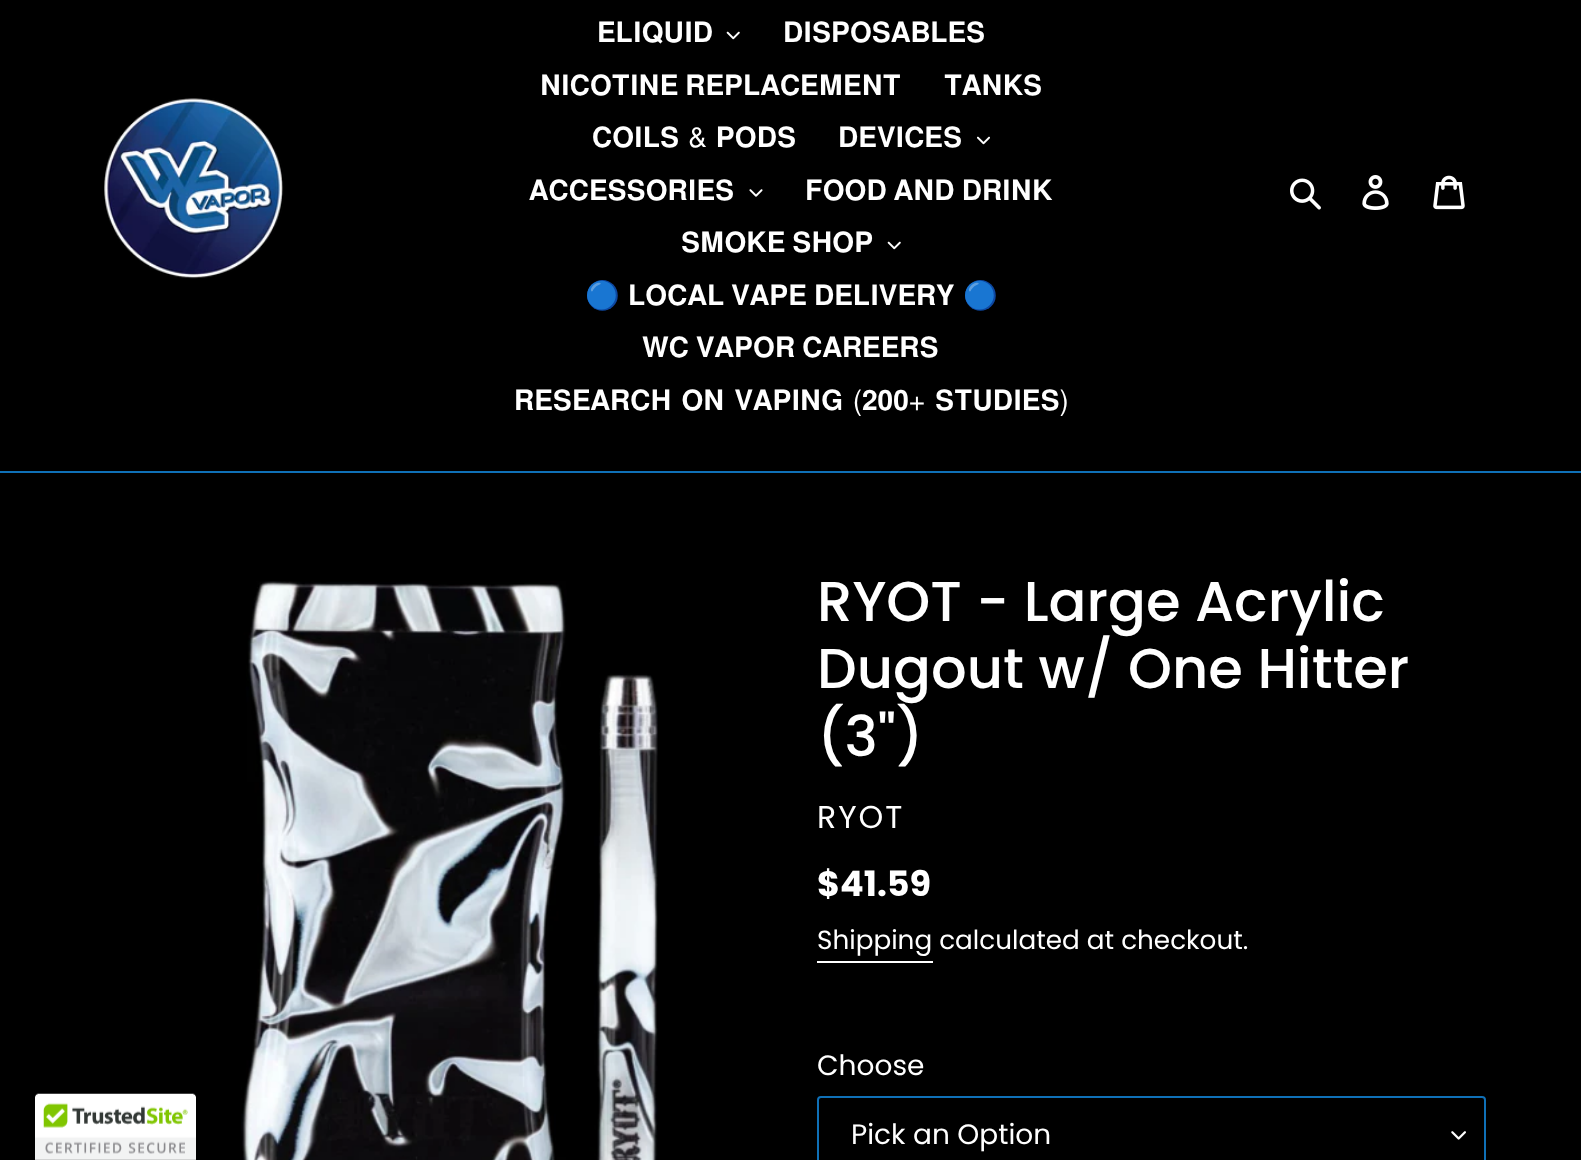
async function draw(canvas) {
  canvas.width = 1581
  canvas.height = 1160
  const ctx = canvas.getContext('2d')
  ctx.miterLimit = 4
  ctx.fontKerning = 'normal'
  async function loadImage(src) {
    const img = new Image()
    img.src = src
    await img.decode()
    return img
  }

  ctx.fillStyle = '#000'
  ctx.fillRect(0, 0, 1581, 1160)
  ctx.fillStyle = '#0f70b7'
  ctx.fillRect(0, 471, 1581, 2)
  ctx.drawImage(await loadImage('image0.png'), 104, 98, 180, 181)
  ctx.font = '28px FreeSans'
  ctx.fillStyle = '#fff'
  ctx.fillText('𝐄𝐋𝐈𝐐𝐔𝐈𝐃', 597, 42)
  ctx.drawImage(await loadImage('image1.png'), 726, 31, 14, 9)
  ctx.fillText('𝐃𝐈𝐒𝐏𝐎𝐒𝐀𝐁𝐋𝐄𝐒', 783, 42)
  ctx.fillText('𝐍𝐈𝐂𝐎𝐓𝐈𝐍𝐄 𝐑𝐄𝐏𝐋𝐀𝐂𝐄𝐌𝐄𝐍𝐓', 540, 95)
  ctx.fillText('𝐓𝐀𝐍𝐊𝐒', 944, 95)
  ctx.wordSpacing = '2px'
  ctx.fillText('𝐂𝐎𝐈𝐋𝐒 & 𝐏𝐎𝐃𝐒', 592, 147)
  ctx.wordSpacing = '0px'
  ctx.fillText('𝐃𝐄𝐕𝐈𝐂𝐄𝐒', 838, 147)
  ctx.drawImage(await loadImage('image2.png'), 977, 136, 13, 9)
  ctx.fillText('𝐀𝐂𝐂𝐄𝐒𝐒𝐎𝐑𝐈𝐄𝐒', 529, 200)
  ctx.drawImage(await loadImage('image3.png'), 749, 189, 14, 8)
  ctx.fillText('𝐅𝐎𝐎𝐃 𝐀𝐍𝐃 𝐃𝐑𝐈𝐍𝐊', 805, 200)
  ctx.fillText('𝐒𝐌𝐎𝐊𝐄 𝐒𝐇𝐎𝐏', 681, 252)
  ctx.drawImage(await loadImage('image1.png'), 887, 241, 14, 9)
  ctx.font = '28px Noto Color Emoji'
  ctx.fillText('🔵', 585, 305)
  ctx.font = '28px FreeSans'
  ctx.fillText('𝐋𝐎𝐂𝐀𝐋 𝐕𝐀𝐏𝐄 𝐃𝐄𝐋𝐈𝐕𝐄𝐑𝐘', 628, 305)
  ctx.font = '28px Noto Color Emoji'
  ctx.fillText('🔵', 963, 305)
  ctx.font = '28px FreeSans'
  ctx.fillText('𝐖𝐂 𝐕𝐀𝐏𝐎𝐑 𝐂𝐀𝐑𝐄𝐄𝐑𝐒', 642, 357)
  ctx.wordSpacing = '3px'
  ctx.fillText('𝐑𝐄𝐒𝐄𝐀𝐑𝐂𝐇 𝐎𝐍 𝐕𝐀𝐏𝐈𝐍𝐆 (𝟐𝟎𝟎+ 𝐒𝐓𝐔𝐃𝐈𝐄𝐒)', 514, 410)
  ctx.drawImage(await loadImage('image4.png'), 1290, 178, 31, 32)
  ctx.drawImage(await loadImage('image5.png'), 1362, 175, 27, 35)
  ctx.drawImage(await loadImage('image6.png'), 1433, 175, 32, 35)
  ctx.drawImage(await loadImage('image7.png'), 35, 1093, 161, 67)
  ctx.drawImage(await loadImage('image8.png'), 241, 581, 417, 579)
  ctx.wordSpacing = '0px'
  ctx.font = '500 56px Poppins'
  ctx.fillText('RYOT - Large Acrylic', 817, 621)
  ctx.fillText('Dugout w/ One Hitter', 817, 688)
  ctx.fillText('(3")', 817, 756)
  ctx.letterSpacing = '2px'
  ctx.font = '31.5px Poppins'
  ctx.fillText('RYOT', 817, 828)
  ctx.letterSpacing = '0px'
  ctx.font = 'bold 35px Poppins'
  ctx.fillText('$41.59', 817, 896)
  ctx.font = '26.25px Poppins'
  ctx.fillText('Shipping calculated at checkout.', 817, 949)
  ctx.fillRect(817, 961, 116, 2)
  ctx.font = '28px Poppins'
  ctx.fillText('Choose', 817, 1075)
  ctx.drawImage(await loadImage('image9.png'), 1451, 1131, 15, 9)
  ctx.beginPath()
  ctx.roundRect(818, 1097, 667, 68, 3)
  ctx.strokeStyle = '#0f70b7'
  ctx.lineWidth = 2
  ctx.stroke()
  ctx.fillText('Pick an Option', 851, 1144)
}

draw(document.querySelector('canvas'))
